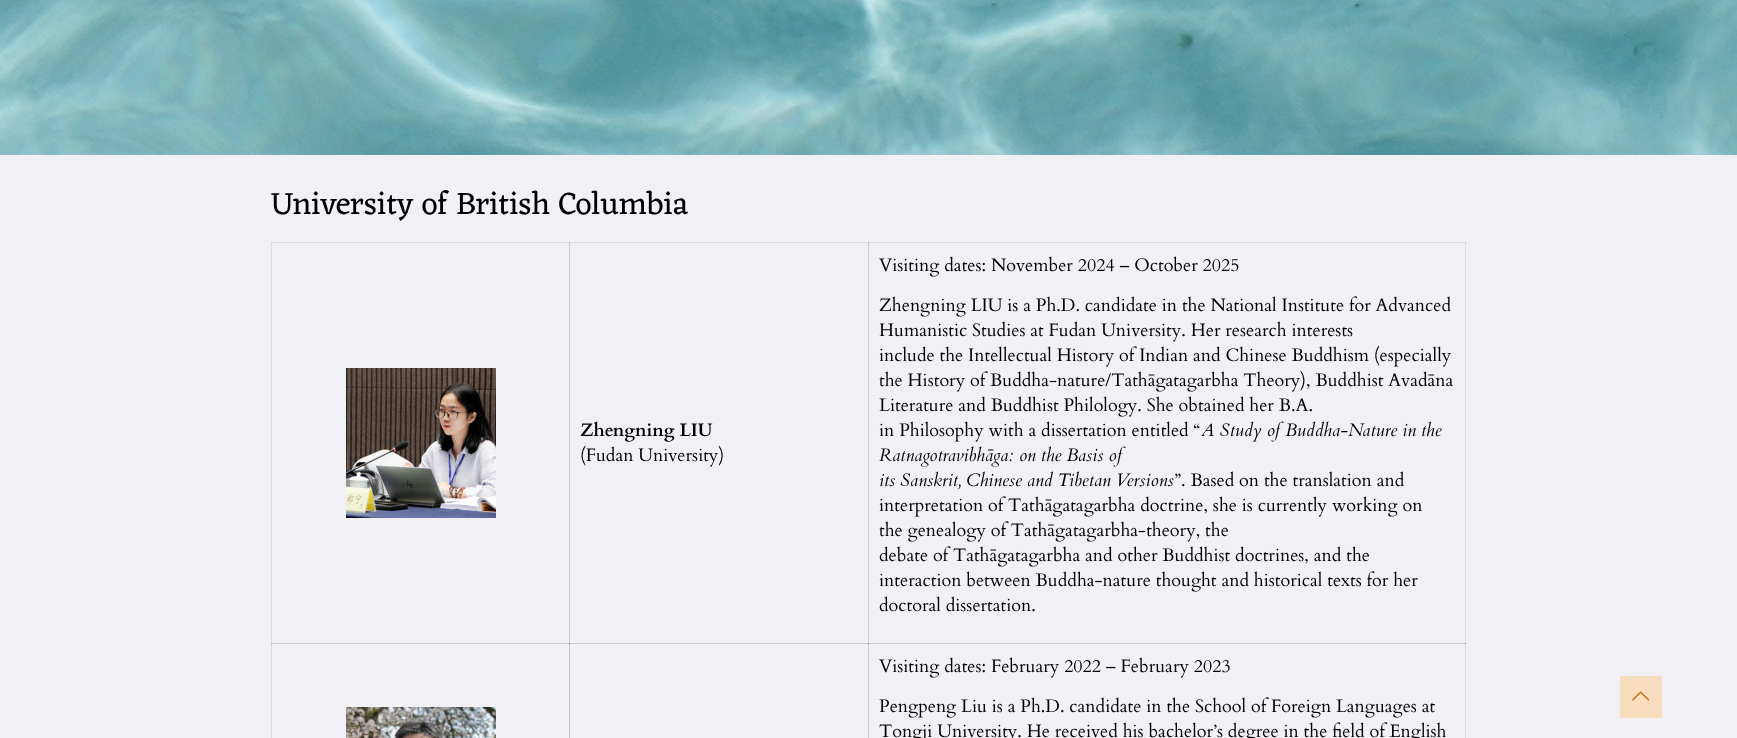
async function draw(canvas) {
  canvas.width = 1737
  canvas.height = 738
  const ctx = canvas.getContext('2d')
  ctx.miterLimit = 4
  ctx.fontKerning = 'normal'
  async function loadImage(src) {
    const img = new Image()
    img.src = src
    await img.decode()
    return img
  }

  ctx.fillStyle = '#f1f1f5'
  ctx.fillRect(0, 0, 1737, 738)
  ctx.fillStyle = '#dedee1'
  ctx.fillRect(271, 242, 1, 402)
  ctx.fillRect(271, 242, 299, 1)
  ctx.fillStyle = '#cccccf'
  ctx.fillRect(271, 242, 1, 1)
  ctx.fillRect(569, 242, 1, 402)
  ctx.fillStyle = '#dedee1'
  ctx.fillRect(569, 242, 300, 1)
  ctx.fillStyle = '#adadaf'
  ctx.fillRect(569, 242, 1, 1)
  ctx.fillStyle = '#cccccf'
  ctx.fillRect(868, 242, 1, 402)
  ctx.fillStyle = '#dedee1'
  ctx.fillRect(1465, 242, 1, 402)
  ctx.fillStyle = '#cccccf'
  ctx.fillRect(271, 643, 1195, 1)
  ctx.fillStyle = '#adadaf'
  ctx.fillRect(271, 643, 1, 1)
  ctx.fillStyle = '#7b7b7d'
  ctx.fillRect(569, 643, 1, 1)
  ctx.drawImage(await loadImage('image0.png'), 0, 0, 1737, 155)
  ctx.font = '32px Eczar'
  ctx.fillStyle = '#000'
  ctx.fillText('University of British Columbia', 271, 214)
  ctx.drawImage(await loadImage('image1.png'), 346, 368, 150, 150)
  ctx.font = 'bold 18px Cardo'
  ctx.fillText('Zhengning LIU', 580, 436)
  ctx.font = '18px Cardo'
  ctx.fillText('(Fudan University)', 580, 461)
  ctx.fillStyle = '#dedee1'
  ctx.fillRect(868, 242, 598, 1)
  ctx.fillStyle = '#adadaf'
  ctx.fillRect(868, 242, 1, 1)
  ctx.fillStyle = '#cccccf'
  ctx.fillRect(1465, 242, 1, 1)
  ctx.fillStyle = '#000'
  ctx.fillText('Visiting dates: November 2024 – October 2025', 879, 271)
  ctx.fillText('Zhengning LIU is a Ph.D. candidate in the National Institute for Advanced', 879, 311)
  ctx.fillText('Humanistic Studies at Fudan University. Her research interests', 879, 336)
  ctx.fillText('include the Intellectual History of Indian and Chinese Buddhism (especially', 879, 361)
  ctx.fillText('the History of Buddha-nature/Tathāgatagarbha Theory), Buddhist Avadāna', 879, 386)
  ctx.fillText('Literature and Buddhist Philology. She obtained her B.A.', 879, 411)
  ctx.fillText('in Philosophy with a dissertation entitled “', 879, 436)
  ctx.font = 'italic 18px Cardo'
  ctx.fillText('A Study of Buddha-Nature in the', 1201, 436)
  ctx.fillText('Ratnagotravibhāga: on the Basis of', 879, 461)
  ctx.fillText('its Sanskrit, Chinese and Tibetan Versions', 879, 486)
  ctx.font = '18px Cardo'
  ctx.fillText('”. Based on the translation and', 1174, 486)
  ctx.fillText('interpretation of Tathāgatagarbha doctrine, she is currently working on', 879, 511)
  ctx.fillText('the genealogy of Tathāgatagarbha-theory, the', 879, 536)
  ctx.fillText('debate of Tathāgatagarbha and other Buddhist doctrines, and the', 879, 561)
  ctx.fillText('interaction between Buddha-nature thought and historical texts for her', 879, 586)
  ctx.fillText('doctoral dissertation.', 879, 611)
  ctx.fillStyle = '#dcdce0'
  ctx.fillRect(271, 644, 1, 94)
  ctx.fillStyle = '#cacace'
  ctx.fillRect(569, 644, 1, 94)
  ctx.drawImage(await loadImage('image2.png'), 346, 707, 150, 31)
  ctx.fillRect(868, 644, 1, 94)
  ctx.fillStyle = '#dcdce0'
  ctx.fillRect(1465, 644, 1, 94)
  ctx.fillStyle = '#7b7b7d'
  ctx.fillRect(868, 643, 1, 1)
  ctx.fillStyle = '#adadaf'
  ctx.fillRect(1465, 643, 1, 1)
  ctx.fillStyle = '#000'
  ctx.fillText('Visiting dates: February 2022 – February 2023', 879, 672)
  ctx.fillText('Pengpeng Liu is a Ph.D. candidate in the School of Foreign Languages at', 879, 712)
  ctx.fillText('Tongji University. He received his bachelor’s degree in the field of English', 879, 737)
  ctx.fillStyle = '#f8ddbe'
  ctx.fillRect(1620, 676, 42, 42)
  ctx.drawImage(await loadImage('image3.png'), 1632, 691, 18, 10)
}

draw(document.querySelector('canvas'))
